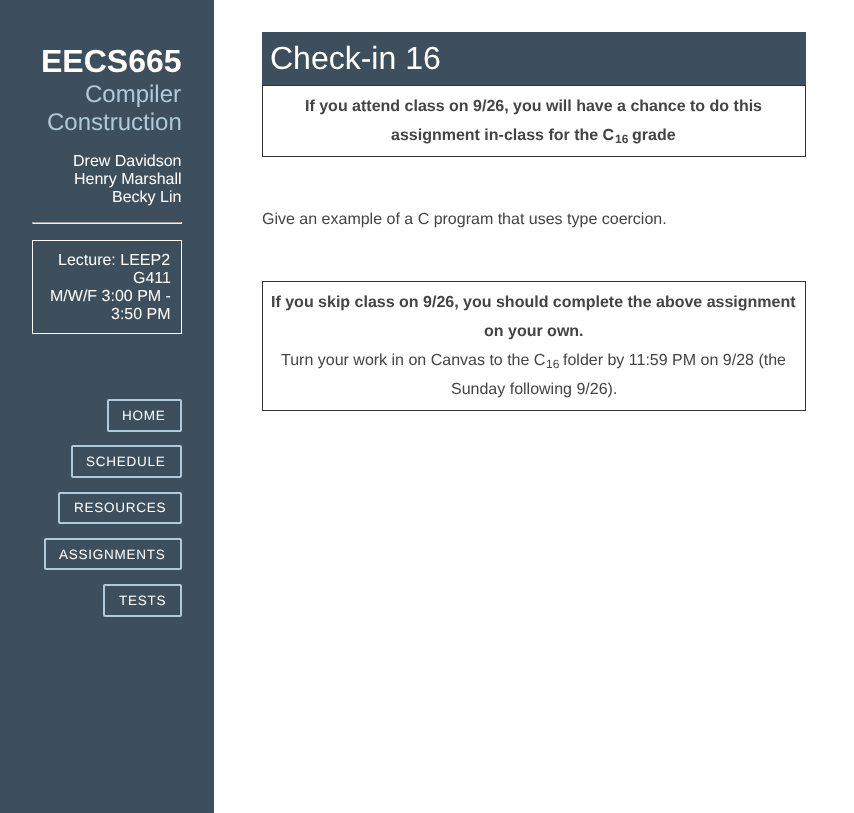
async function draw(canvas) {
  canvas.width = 854
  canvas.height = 813
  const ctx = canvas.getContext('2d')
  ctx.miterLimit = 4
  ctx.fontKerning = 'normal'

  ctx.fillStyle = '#fff'
  ctx.fillRect(0, 0, 854, 813)
  ctx.fillStyle = '#3d4f5d'
  ctx.fillRect(0, 0, 214, 813)
  ctx.font = 'bold 32px Liberation Sans'
  ctx.fillStyle = '#fff'
  ctx.fillText('EECS665', 41, 72)
  ctx.font = '24px Liberation Sans'
  ctx.fillStyle = '#b0cadb'
  ctx.fillText('Compiler', 85, 102)
  ctx.fillText('Construction', 47, 130)
  ctx.font = '16px Liberation Sans'
  ctx.fillStyle = '#fff'
  ctx.fillText('Drew Davidson', 73, 166)
  ctx.fillText('Henry Marshall', 74, 184)
  ctx.fillText('Becky Lin', 112, 202)
  ctx.fillStyle = '#9f9f9f'
  ctx.fillRect(32, 222, 150, 1)
  ctx.fillStyle = '#eee'
  ctx.fillRect(181, 222, 1, 2)
  ctx.fillRect(32, 223, 150, 1)
  ctx.fillStyle = '#9f9f9f'
  ctx.fillRect(32, 222, 1, 2)
  ctx.strokeStyle = '#fff'
  ctx.strokeRect(32.5, 240.5, 149, 93)
  ctx.fillStyle = '#fff'
  ctx.fillText('Lecture: LEEP2', 58, 265)
  ctx.fillText('G411', 133, 283)
  ctx.fillText('M/W/F 3:00 PM -', 50, 301)
  ctx.fillText('3:50 PM', 111, 319)
  ctx.beginPath()
  ctx.roundRect(108, 400, 73, 31, 1)
  ctx.strokeStyle = '#b0cadb'
  ctx.lineWidth = 2
  ctx.stroke()
  ctx.letterSpacing = '0.75px'
  ctx.font = '13.5px Liberation Sans'
  ctx.fillText('HOME', 122, 420)
  ctx.beginPath()
  ctx.roundRect(72, 446, 109, 31, 1)
  ctx.stroke()
  ctx.fillText('SCHEDULE', 86, 466)
  ctx.beginPath()
  ctx.roundRect(59, 493, 122, 30, 1)
  ctx.stroke()
  ctx.fillText('RESOURCES', 74, 512)
  ctx.beginPath()
  ctx.roundRect(45, 539, 136, 30, 1)
  ctx.stroke()
  ctx.fillText('ASSIGNMENTS', 59, 559)
  ctx.beginPath()
  ctx.roundRect(104, 585, 77, 31, 1)
  ctx.stroke()
  ctx.fillText('TESTS', 119, 605)
  ctx.fillStyle = '#3d4f5d'
  ctx.fillRect(262, 32, 544, 53)
  ctx.letterSpacing = '0px'
  ctx.font = '32px Liberation Sans'
  ctx.fillStyle = '#fff'
  ctx.fillText('Check-in 16', 270, 69)
  ctx.strokeStyle = '#333'
  ctx.lineWidth = 1
  ctx.strokeRect(262.5, 85.5, 543, 71)
  ctx.font = 'bold 16px Liberation Sans'
  ctx.fillStyle = '#444'
  ctx.fillText('If you attend class on 9/26, you will have a chance to do this', 305, 111)
  ctx.fillText('assignment in-class for the C', 391, 140)
  ctx.font = 'bold 12px Liberation Sans'
  ctx.fillText('16', 615, 143)
  ctx.font = 'bold 16px Liberation Sans'
  ctx.fillText('grade', 632, 140)
  ctx.font = '16px Liberation Sans'
  ctx.fillText('Give an example of a C program that uses type coercion.', 262, 224)
  ctx.strokeRect(262.5, 281.5, 543, 129)
  ctx.font = 'bold 16px Liberation Sans'
  ctx.fillText('If you skip class on 9/26, you should complete the above assignment', 271, 307)
  ctx.fillText('on your own.', 484, 336)
  ctx.font = '16px Liberation Sans'
  ctx.fillText('Turn your work in on Canvas to the C', 281, 365)
  ctx.font = '12px Liberation Sans'
  ctx.fillText('16', 546, 368)
  ctx.font = '16px Liberation Sans'
  ctx.fillText('folder by 11:59 PM on 9/28 (the', 563, 365)
  ctx.fillText('Sunday following 9/26).', 451, 394)
}

draw(document.querySelector('canvas'))
